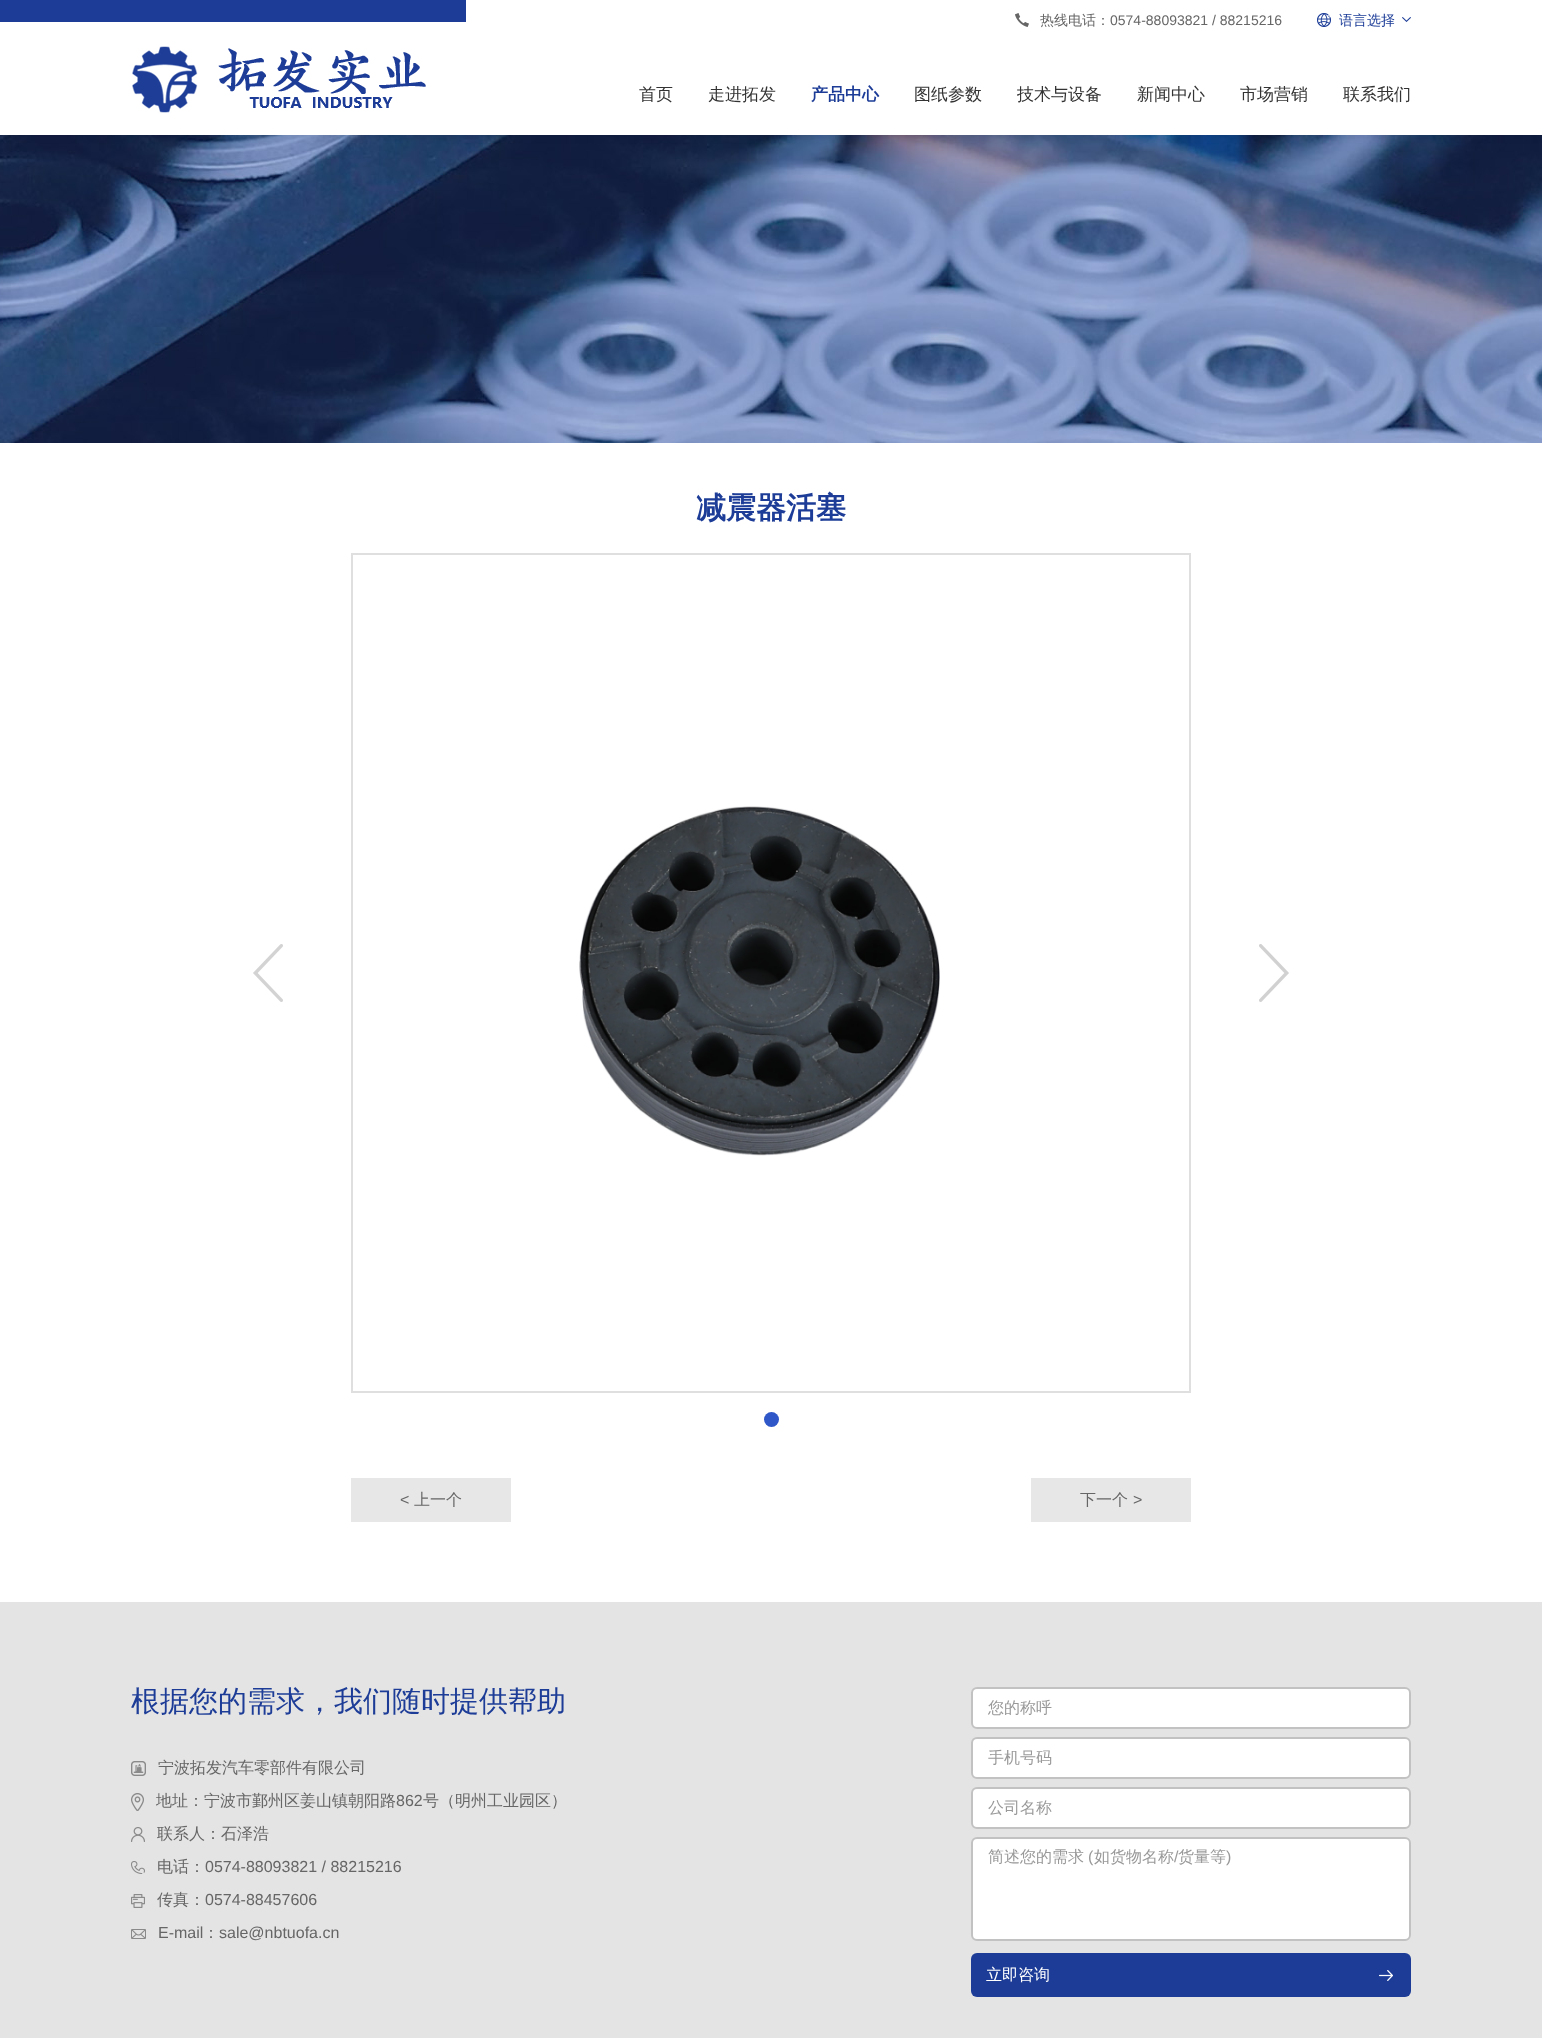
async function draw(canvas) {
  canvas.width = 1542
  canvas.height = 2038
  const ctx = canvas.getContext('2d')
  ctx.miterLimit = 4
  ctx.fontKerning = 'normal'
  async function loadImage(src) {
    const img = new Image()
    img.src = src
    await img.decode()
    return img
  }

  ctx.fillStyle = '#fff'
  ctx.fillRect(0, 0, 1542, 2038)
  ctx.drawImage(await loadImage('image4.png'), 0, 135, 1542, 308)
  ctx.fillStyle = '#0000001a'
  ctx.filter = 'blur(5px)'
  ctx.beginPath()
  ctx.rect(0, 0, 1542, 135)
  ctx.fill()
  ctx.filter = 'none'
  ctx.fillStyle = '#fff'
  ctx.fillRect(0, 0, 1542, 135)
  ctx.fillStyle = '#1c3c97'
  ctx.fillRect(0, 0, 466, 22)
  ctx.drawImage(await loadImage('image0.png'), 132, 46, 294, 67)
  ctx.drawImage(await loadImage('image1.png'), 1015, 13, 14, 14)
  ctx.font = '500 14px WenQuanYi Zen Hei'
  ctx.fillStyle = '#666'
  ctx.fillText('热线电话：', 1040, 25)
  ctx.font = '14px Liberation Sans'
  ctx.fillText('0574-88093821 / 88215216', 1110, 25)
  ctx.drawImage(await loadImage('image2.png'), 1317, 13, 14, 14)
  ctx.font = '500 14px WenQuanYi Zen Hei'
  ctx.fillStyle = '#1c3c97'
  ctx.fillText('语言选择', 1339, 25)
  ctx.drawImage(await loadImage('image3.png'), 1402, 17, 9, 5)
  ctx.font = '500 17px WenQuanYi Zen Hei'
  ctx.fillStyle = '#333'
  ctx.fillText('首页', 639, 100)
  ctx.fillText('走进拓发', 708, 100)
  ctx.font = 'bold 17px WenQuanYi Zen Hei'
  ctx.fillStyle = '#1c3c97'
  ctx.fillText('产品中心', 811, 100)
  ctx.font = '500 17px WenQuanYi Zen Hei'
  ctx.fillStyle = '#333'
  ctx.fillText('图纸参数', 914, 100)
  ctx.fillText('技术与设备', 1017, 100)
  ctx.fillText('新闻中心', 1137, 100)
  ctx.fillText('市场营销', 1240, 100)
  ctx.fillText('联系我们', 1343, 100)
  ctx.font = 'bold 30px WenQuanYi Zen Hei'
  ctx.fillStyle = '#1c3c97'
  ctx.fillText('减震器活塞', 696, 518)
  ctx.strokeStyle = '#dfdfdf'
  ctx.lineWidth = 2
  ctx.strokeRect(352, 554, 838, 838)
  ctx.drawImage(await loadImage('image5.png'), 253, 944, 30, 58)
  ctx.drawImage(await loadImage('image6.png'), 579, 806, 361, 350)
  ctx.drawImage(await loadImage('image7.png'), 1259, 944, 30, 58)
  ctx.fillStyle = '#2f57c8'
  ctx.beginPath()
  ctx.arc(771.5, 1419.5, 7.5, 0, 2 * Math.PI)
  ctx.fill()
  ctx.fillStyle = '#e7e7e7'
  ctx.fillRect(351, 1478, 160, 44)
  ctx.font = '16px Liberation Sans'
  ctx.fillStyle = '#666'
  ctx.fillText('<', 400, 1505)
  ctx.font = '500 16px WenQuanYi Zen Hei'
  ctx.fillText('上一个', 414, 1505)
  ctx.fillStyle = '#e7e7e7'
  ctx.fillRect(1031, 1478, 160, 44)
  ctx.fillStyle = '#666'
  ctx.fillText('下一个', 1080, 1505)
  ctx.font = '16px Liberation Sans'
  ctx.fillText('>', 1133, 1505)
  ctx.fillStyle = '#e4e4e4'
  ctx.fillRect(0, 1602, 1542, 436)
  ctx.font = '500 29px WenQuanYi Zen Hei'
  ctx.fillStyle = '#1c3c97'
  ctx.fillText('根据您的需求，我们随时提供帮助', 131, 1711)
  ctx.drawImage(await loadImage('image8.png'), 131, 1761, 15, 15)
  ctx.font = '500 16px WenQuanYi Zen Hei'
  ctx.fillStyle = '#666'
  ctx.fillText('宁波拓发汽车零部件有限公司', 158, 1773)
  ctx.drawImage(await loadImage('image9.png'), 131, 1793, 13, 18)
  ctx.fillText('地址：宁波市鄞州区姜山镇朝阳路', 156, 1806)
  ctx.font = '16px Liberation Sans'
  ctx.fillText('862', 396, 1806)
  ctx.font = '500 16px WenQuanYi Zen Hei'
  ctx.fillText('号（明州工业园区）', 423, 1806)
  ctx.drawImage(await loadImage('image10.png'), 131, 1827, 14, 15)
  ctx.fillText('联系人：石泽浩', 157, 1839)
  ctx.drawImage(await loadImage('image11.png'), 131, 1861, 14, 13)
  ctx.fillText('电话：', 157, 1872)
  ctx.font = '16px Liberation Sans'
  ctx.fillText('0574-88093821 / 88215216', 205, 1872)
  ctx.drawImage(await loadImage('image12.png'), 131, 1894, 14, 14)
  ctx.font = '500 16px WenQuanYi Zen Hei'
  ctx.fillText('传真：', 157, 1905)
  ctx.font = '16px Liberation Sans'
  ctx.fillText('0574-88457606', 205, 1905)
  ctx.drawImage(await loadImage('image13.png'), 131, 1929, 15, 10)
  ctx.fillText('E-mail', 158, 1938)
  ctx.font = '500 16px WenQuanYi Zen Hei'
  ctx.fillText('：', 203, 1938)
  ctx.font = '16px Liberation Sans'
  ctx.fillText('sale@nbtuofa.cn', 219, 1938)
  ctx.fillStyle = '#fff'
  ctx.beginPath()
  ctx.roundRect(972, 1688, 438, 40, 5)
  ctx.fill()
  ctx.strokeStyle = '#c2c2c2'
  ctx.stroke()
  ctx.font = '500 16px WenQuanYi Zen Hei'
  ctx.fillStyle = '#999'
  ctx.fillText('您的称呼', 988, 1713)
  ctx.fillStyle = '#fff'
  ctx.beginPath()
  ctx.roundRect(972, 1738, 438, 40, 5)
  ctx.fill()
  ctx.stroke()
  ctx.fillStyle = '#999'
  ctx.fillText('手机号码', 988, 1763)
  ctx.fillStyle = '#fff'
  ctx.beginPath()
  ctx.roundRect(972, 1788, 438, 40, 5)
  ctx.fill()
  ctx.stroke()
  ctx.fillStyle = '#999'
  ctx.fillText('公司名称', 988, 1813)
  ctx.fillStyle = '#fff'
  ctx.beginPath()
  ctx.roundRect(972, 1838, 438, 102, 5)
  ctx.fill()
  ctx.stroke()
  ctx.fillStyle = '#999'
  ctx.fillText('简述您的需求', 988, 1862)
  ctx.font = '16px Liberation Sans'
  ctx.fillText('(', 1088, 1862)
  ctx.font = '500 16px WenQuanYi Zen Hei'
  ctx.fillText('如货物名称', 1094, 1862)
  ctx.font = '16px Liberation Sans'
  ctx.fillText('/', 1174, 1862)
  ctx.font = '500 16px WenQuanYi Zen Hei'
  ctx.fillText('货量等', 1178, 1862)
  ctx.font = '16px Liberation Sans'
  ctx.fillText(')', 1226, 1862)
  ctx.fillStyle = '#1c3c97'
  ctx.beginPath()
  ctx.roundRect(971, 1953, 440, 44, 6)
  ctx.fill()
  ctx.drawImage(await loadImage('image14.png'), 1379, 1970, 14, 11)
  ctx.font = '500 16px WenQuanYi Zen Hei'
  ctx.fillStyle = '#fff'
  ctx.fillText('立即咨询', 986, 1980)
}

draw(document.querySelector('canvas'))
